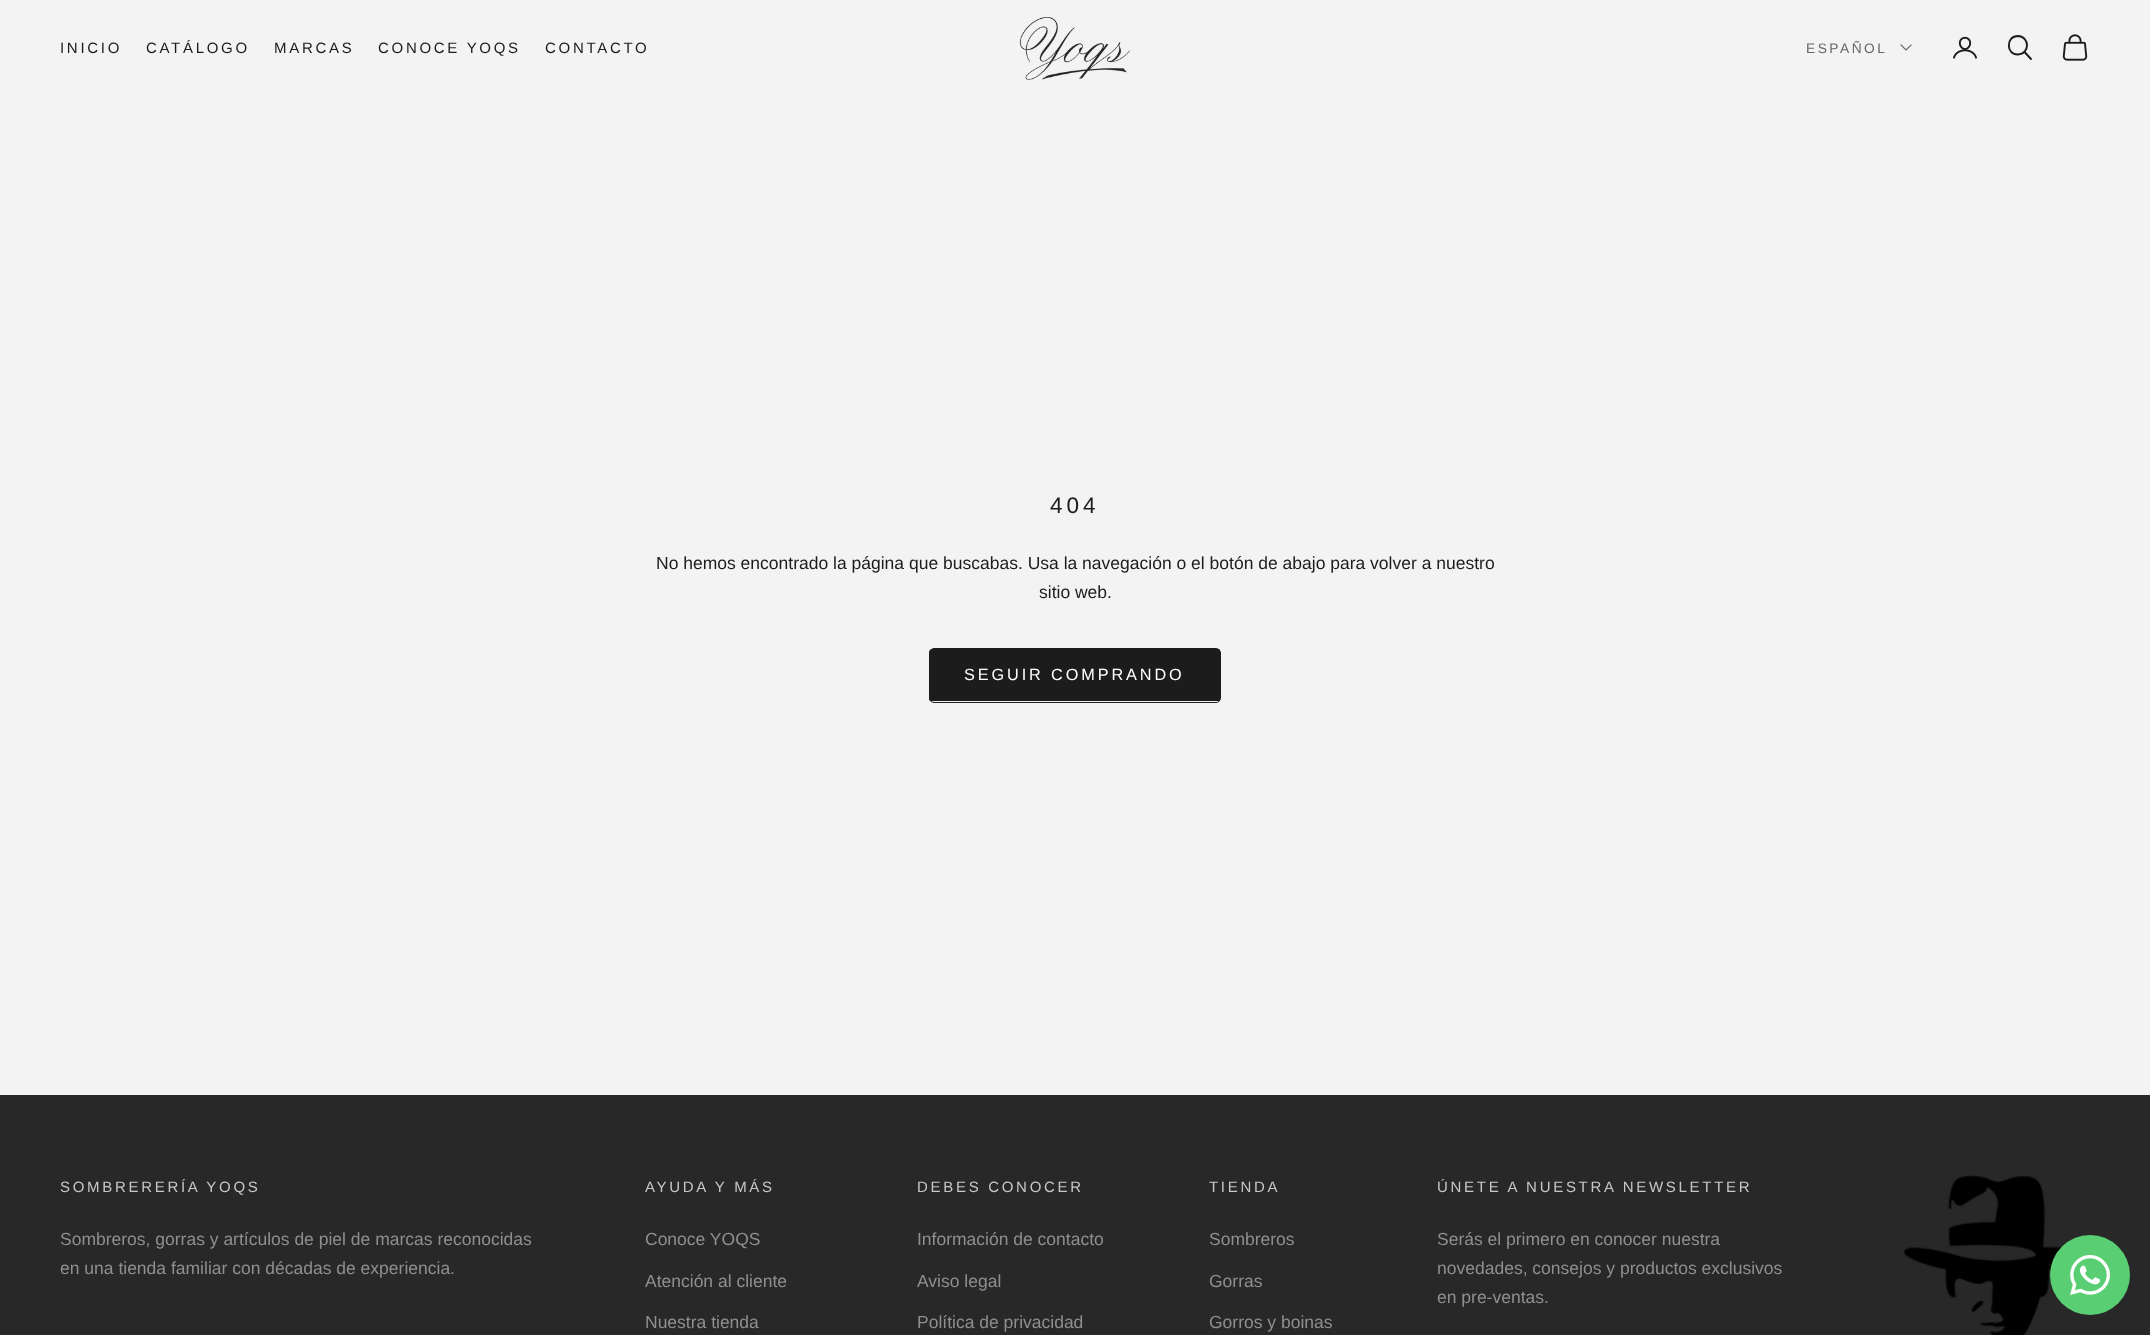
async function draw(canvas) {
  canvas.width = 2150
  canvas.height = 1335
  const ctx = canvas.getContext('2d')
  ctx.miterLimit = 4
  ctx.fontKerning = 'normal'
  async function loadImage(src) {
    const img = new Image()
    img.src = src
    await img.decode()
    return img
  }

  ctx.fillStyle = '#f3f3f3'
  ctx.fillRect(0, 0, 2150, 1335)
  ctx.letterSpacing = '2.7px'
  ctx.font = '15px Liberation Sans'
  ctx.fillStyle = '#1c1c1c'
  ctx.fillText('INICIO', 60, 53)
  ctx.fillText('CATÁLOGO', 146, 53)
  ctx.fillText('MARCAS', 274, 53)
  ctx.fillText('CONOCE YOQS', 378, 53)
  ctx.fillText('CONTACTO', 545, 53)
  ctx.drawImage(await loadImage('image0.png'), 1019, 17, 111, 63)
  ctx.letterSpacing = '2.5px'
  ctx.font = '13.75px Liberation Sans'
  ctx.fillStyle = '#676767'
  ctx.fillText('ESPAÑOL', 1806, 53)
  ctx.beginPath()
  ctx.moveTo(1901, 45)
  ctx.lineTo(1906, 50)
  ctx.lineTo(1911, 45)
  ctx.strokeStyle = '#676767'
  ctx.lineWidth = 1.2
  ctx.lineCap = 'square'
  ctx.stroke()
  ctx.drawImage(await loadImage('image1.png'), 1952, 36, 26, 23)
  ctx.beginPath()
  ctx.moveTo(2018, 36)
  ctx.bezierCurveTo(2005.5, 36, 2006, 55, 2018, 54.5)
  ctx.bezierCurveTo(2030, 54, 2030, 36.5, 2018, 36)
  ctx.closePath()
  ctx.strokeStyle = '#1c1c1c'
  ctx.lineWidth = 1.9
  ctx.lineCap = 'butt'
  ctx.stroke()
  ctx.beginPath()
  ctx.moveTo(2025, 52.5)
  ctx.lineTo(2031, 59)
  ctx.lineCap = 'round'
  ctx.stroke()
  ctx.drawImage(await loadImage('image2.png'), 2062, 34, 26, 27)
  ctx.letterSpacing = '4px'
  ctx.font = '22.5px Liberation Sans'
  ctx.fillStyle = '#1c1c1c'
  ctx.fillText('404', 1050, 513)
  ctx.letterSpacing = '0px'
  ctx.font = '17.5px Liberation Sans'
  ctx.fillText('No hemos encontrado la página que buscabas. Usa la navegación o el botón de abajo para volver a nuestro', 656, 569)
  ctx.fillText('sitio web.', 1039, 598)
  ctx.save()
  ctx.beginPath()
  ctx.roundRect(929, 648, 292, 55, 5)
  ctx.clip()
  ctx.fillRect(929, 649, 291, 52)
  ctx.restore()
  ctx.beginPath()
  ctx.roundRect(929.5, 648.5, 291, 54, 4.5)
  ctx.lineWidth = 1
  ctx.stroke()
  ctx.letterSpacing = '2.9px'
  ctx.font = '16.25px Liberation Sans'
  ctx.fillStyle = '#fff'
  ctx.fillText('SEGUIR COMPRANDO', 964, 680)
  ctx.fillStyle = '#282828'
  ctx.fillRect(0, 1095, 2150, 240)
  ctx.letterSpacing = '2.7px'
  ctx.font = '15px Liberation Sans'
  ctx.fillStyle = '#c7c7c7'
  ctx.fillText('SOMBRERERÍA YOQS', 60, 1192)
  ctx.letterSpacing = '0px'
  ctx.font = '17.5px Liberation Sans'
  ctx.fillStyle = '#8f8f8f'
  ctx.fillText('Sombreros, gorras y artículos de piel de marcas reconocidas', 60, 1245)
  ctx.fillText('en una tienda familiar con décadas de experiencia.', 60, 1274)
  ctx.letterSpacing = '2.7px'
  ctx.font = '15px Liberation Sans'
  ctx.fillStyle = '#c7c7c7'
  ctx.fillText('AYUDA Y MÁS', 645, 1192)
  ctx.letterSpacing = '0px'
  ctx.font = '17.5px Liberation Sans'
  ctx.fillStyle = '#8f8f8f'
  ctx.fillText('Conoce YOQS', 645, 1245)
  ctx.fillText('Atención al cliente', 645, 1287)
  ctx.fillText('Nuestra tienda', 645, 1328)
  ctx.letterSpacing = '2.7px'
  ctx.font = '15px Liberation Sans'
  ctx.fillStyle = '#c7c7c7'
  ctx.fillText('DEBES CONOCER', 917, 1192)
  ctx.letterSpacing = '0px'
  ctx.font = '17.5px Liberation Sans'
  ctx.fillStyle = '#8f8f8f'
  ctx.fillText('Información de contacto', 917, 1245)
  ctx.fillText('Aviso legal', 917, 1287)
  ctx.fillText('Política de privacidad', 917, 1328)
  ctx.letterSpacing = '2.7px'
  ctx.font = '15px Liberation Sans'
  ctx.fillStyle = '#c7c7c7'
  ctx.fillText('TIENDA', 1209, 1192)
  ctx.letterSpacing = '0px'
  ctx.font = '17.5px Liberation Sans'
  ctx.fillStyle = '#8f8f8f'
  ctx.fillText('Sombreros', 1209, 1245)
  ctx.fillText('Gorras', 1209, 1287)
  ctx.fillText('Gorros y boinas', 1209, 1328)
  ctx.letterSpacing = '2.7px'
  ctx.font = '15px Liberation Sans'
  ctx.fillStyle = '#c7c7c7'
  ctx.fillText('ÚNETE A NUESTRA NEWSLETTER', 1437, 1192)
  ctx.letterSpacing = '0px'
  ctx.font = '17.5px Liberation Sans'
  ctx.fillStyle = '#8f8f8f'
  ctx.fillText('Serás el primero en conocer nuestra', 1437, 1245)
  ctx.fillText('novedades, consejos y productos exclusivos', 1437, 1274)
  ctx.fillText('en pre-ventas.', 1437, 1303)
  ctx.drawImage(await loadImage('image3.png'), 1903, 1175, 160, 160)
  ctx.fillStyle = '#59ce72'
  ctx.beginPath()
  ctx.arc(2090, 1275, 40, 0, 2 * Math.PI)
  ctx.fill()
  ctx.drawImage(await loadImage('image4.png'), 2070, 1255, 40, 40)
}

draw(document.querySelector('canvas'))
